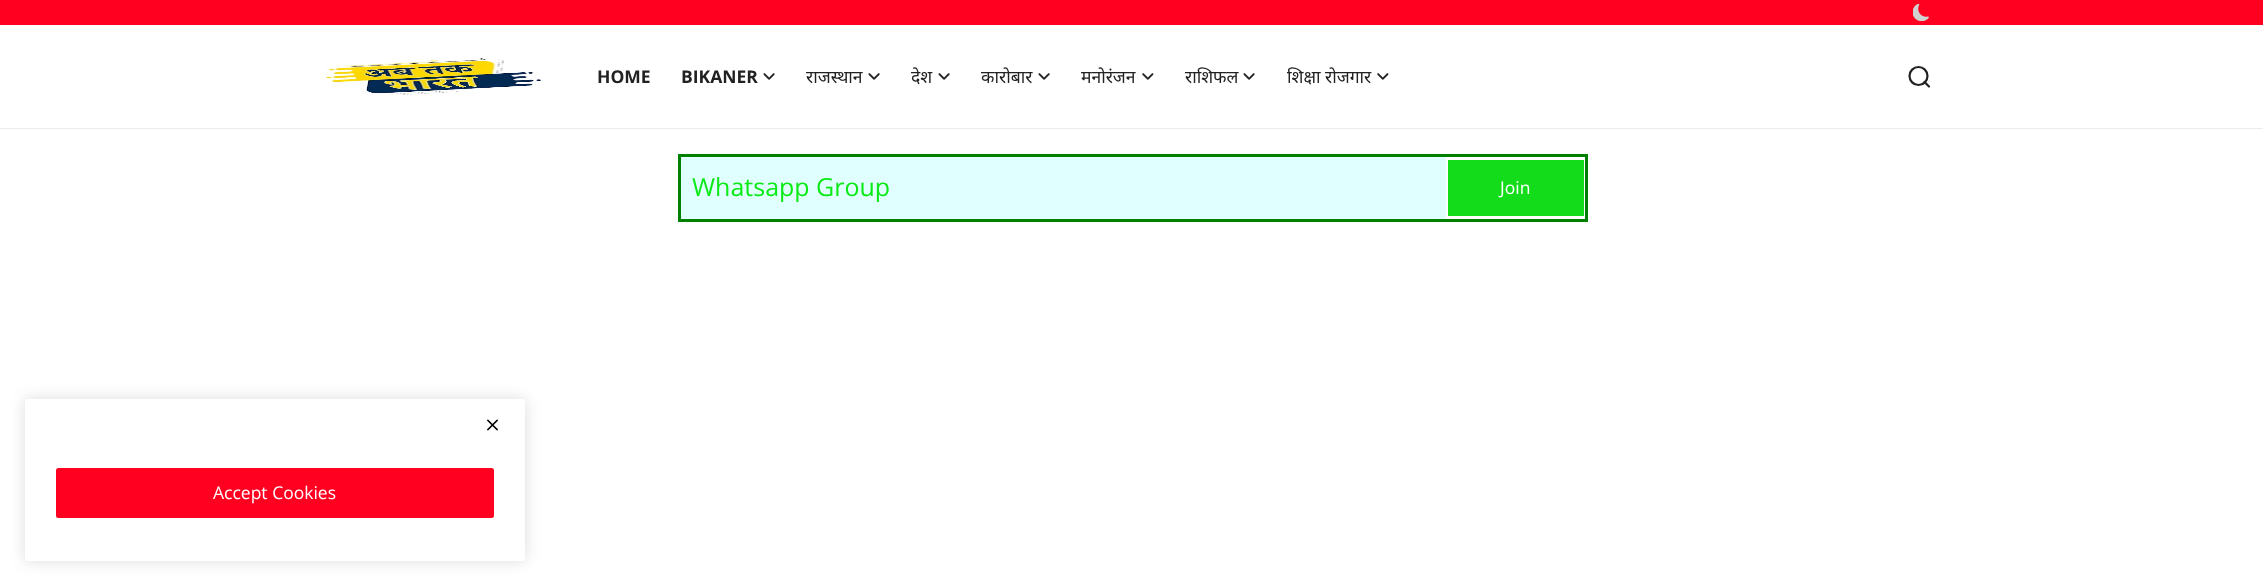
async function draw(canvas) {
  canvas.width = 2263
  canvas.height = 586
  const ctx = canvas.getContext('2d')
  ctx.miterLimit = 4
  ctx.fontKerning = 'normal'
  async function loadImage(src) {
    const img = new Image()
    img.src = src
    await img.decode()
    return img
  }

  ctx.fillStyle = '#fff'
  ctx.fillRect(0, 0, 2263, 586)
  ctx.fillStyle = '#ff0021'
  ctx.fillRect(0, 0, 2263, 25)
  ctx.drawImage(await loadImage('image0.png'), 1913, 4, 16, 17)
  ctx.fillStyle = '#ebebeb'
  ctx.fillRect(0, 128, 2263, 1)
  ctx.drawImage(await loadImage('image1.png'), 325, 58, 218, 37)
  ctx.font = 'bold 17.5px Open Sans'
  ctx.fillStyle = '#222'
  ctx.fillText('HOME', 597, 83)
  ctx.fillText('BIKANER', 681, 83)
  ctx.drawImage(await loadImage('image2.png'), 763, 73, 12, 7)
  ctx.font = '17.5px Noto Sans'
  ctx.fillText('राजस्थान', 806, 83)
  ctx.drawImage(await loadImage('image2.png'), 868, 73, 12, 7)
  ctx.fillText('देश', 911, 83)
  ctx.drawImage(await loadImage('image2.png'), 938, 73, 12, 7)
  ctx.fillText('कारोबार', 981, 83)
  ctx.drawImage(await loadImage('image2.png'), 1038, 73, 12, 7)
  ctx.fillText('मनोरंजन', 1081, 83)
  ctx.drawImage(await loadImage('image3.png'), 1142, 73, 12, 7)
  ctx.fillText('राशिफल', 1185, 83)
  ctx.drawImage(await loadImage('image2.png'), 1243, 73, 12, 7)
  ctx.fillText('शिक्षा रोजगार', 1287, 83)
  ctx.drawImage(await loadImage('image3.png'), 1377, 73, 12, 7)
  ctx.beginPath()
  ctx.arc(1918.5, 76, 9, 0, 2 * Math.PI)
  ctx.strokeStyle = '#222'
  ctx.lineWidth = 2.2
  ctx.stroke()
  ctx.beginPath()
  ctx.moveTo(1929, 86.5)
  ctx.lineTo(1924.5, 82)
  ctx.lineCap = 'round'
  ctx.lineJoin = 'round'
  ctx.stroke()
  ctx.fillStyle = '#008000'
  ctx.fillRect(678, 154, 910, 3)
  ctx.fillRect(1585, 154, 3, 67)
  ctx.fillRect(678, 219, 910, 3)
  ctx.fillRect(678, 154, 3, 67)
  ctx.fillStyle = '#e0ffff'
  ctx.fillRect(681, 157, 765, 62)
  ctx.font = '25px Open Sans'
  ctx.fillStyle = '#0aea14'
  ctx.fillText('Whatsapp Group', 692, 196)
  ctx.fillStyle = '#13dc1a'
  ctx.fillRect(1448, 160, 136, 56)
  ctx.font = '17.5px Open Sans'
  ctx.fillStyle = '#fff'
  ctx.fillText('Join', 1500, 194)
  ctx.save()
  ctx.beginPath()
  ctx.moveTo(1, 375)
  ctx.lineTo(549, 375)
  ctx.lineTo(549, 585)
  ctx.lineTo(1, 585)
  ctx.closePath()
  ctx.moveTo(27.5, 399)
  ctx.lineTo(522.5, 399)
  ctx.bezierCurveTo(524, 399, 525, 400, 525, 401.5)
  ctx.lineTo(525, 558.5)
  ctx.bezierCurveTo(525, 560, 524, 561, 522.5, 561)
  ctx.lineTo(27.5, 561)
  ctx.bezierCurveTo(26, 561, 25, 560, 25, 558.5)
  ctx.lineTo(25, 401.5)
  ctx.bezierCurveTo(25, 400, 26, 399, 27.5, 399)
  ctx.closePath()
  ctx.clip('evenodd')
  ctx.fillStyle = '#00000024'
  ctx.filter = 'blur(7.5px)'
  ctx.beginPath()
  ctx.roundRect(25, 399, 500, 162, 2.5)
  ctx.fill()
  ctx.filter = 'none'
  ctx.restore()
  ctx.drawImage(await loadImage('image4.png'), 487, 419, 11, 12)
  ctx.fillStyle = '#ff0020'
  ctx.beginPath()
  ctx.roundRect(56, 468, 438, 50, 2.5)
  ctx.fill()
  ctx.fillStyle = '#fff'
  ctx.fillText('Accept Cookies', 213, 499)
}

draw(document.querySelector('canvas'))
